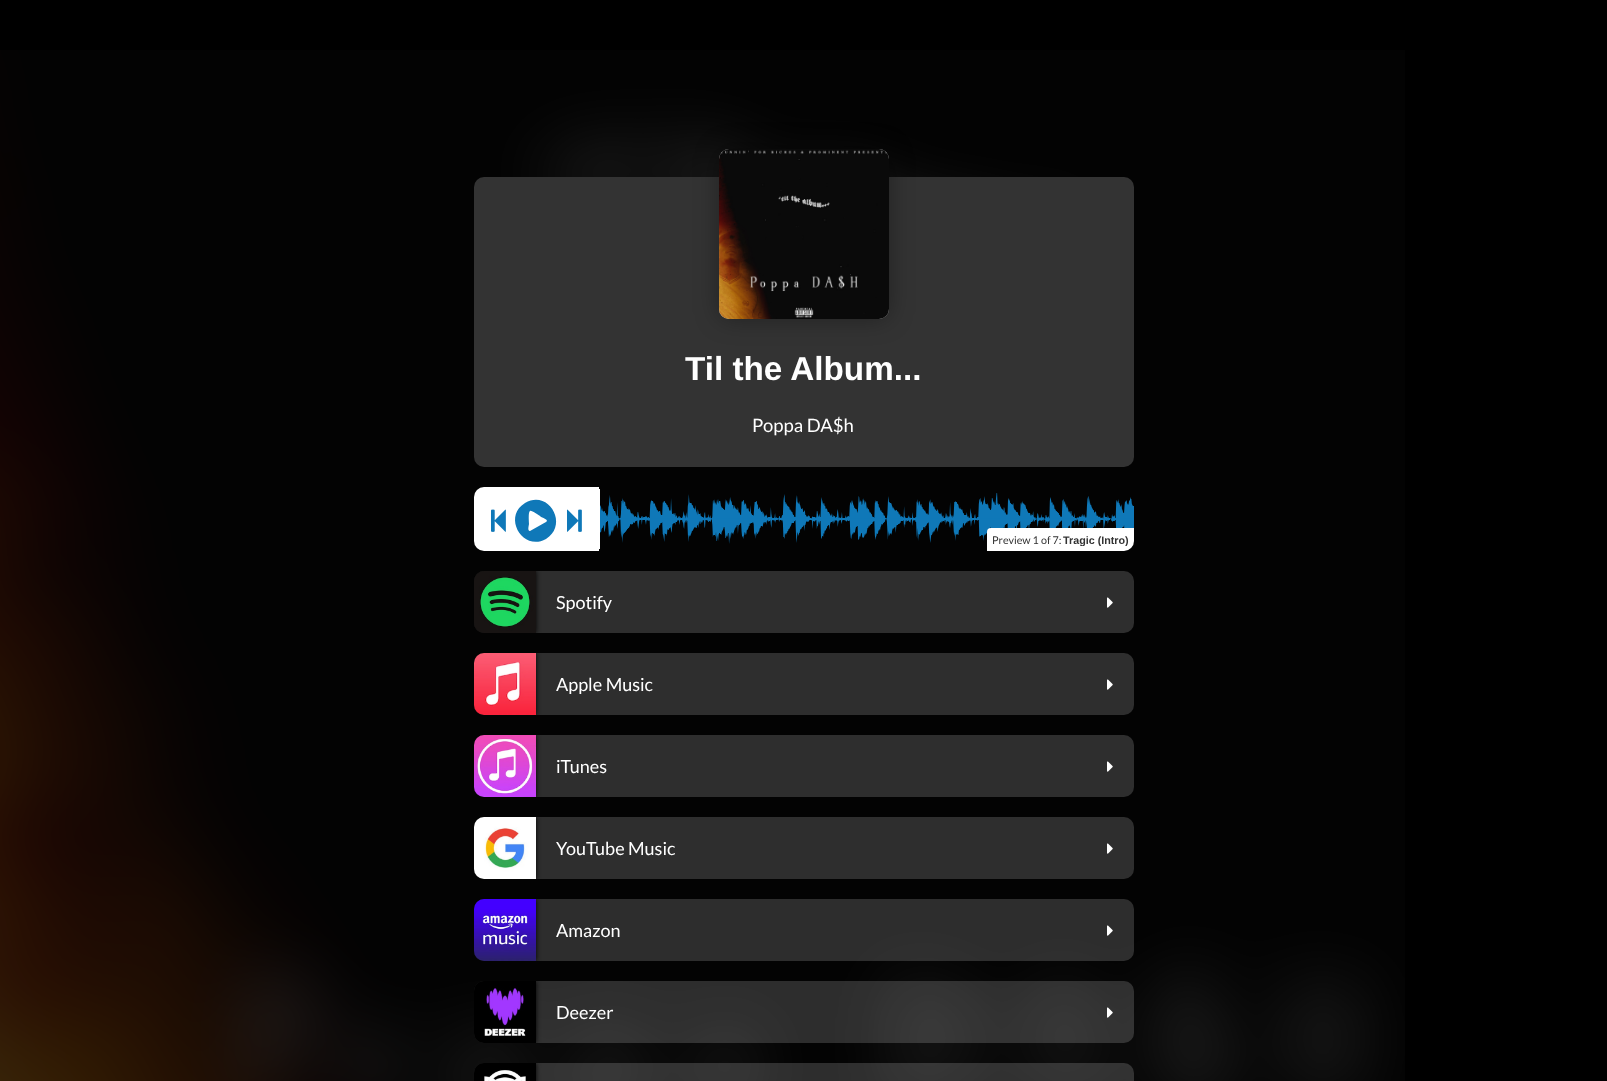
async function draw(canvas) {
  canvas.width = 1607
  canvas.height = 1081
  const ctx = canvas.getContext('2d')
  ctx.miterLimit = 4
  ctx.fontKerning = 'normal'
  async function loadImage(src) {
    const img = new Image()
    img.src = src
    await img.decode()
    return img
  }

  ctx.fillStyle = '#000'
  ctx.fillRect(0, 0, 1607, 1081)
  ctx.drawImage(await loadImage('image0.png'), 0, 50, 1405, 1031)
  ctx.fillStyle = '#333'
  ctx.beginPath()
  ctx.roundRect(474, 177, 660, 290, 10)
  ctx.fill()
  ctx.fillStyle = '#00000059'
  ctx.filter = 'blur(12.5px)'
  ctx.beginPath()
  ctx.roundRect(719, 149, 170, 170, 10)
  ctx.fill()
  ctx.filter = 'none'
  ctx.fillStyle = '#ccc'
  ctx.beginPath()
  ctx.roundRect(719, 149, 170, 170, 10)
  ctx.fill()
  ctx.drawImage(await loadImage('image1.png'), 719, 149, 170, 170)
  ctx.font = 'bold 33.25px Liberation Sans'
  ctx.fillStyle = '#fff'
  ctx.fillText('Til the Album...', 685, 380)
  ctx.font = '18.5px Lato'
  ctx.fillText('Poppa DA$h', 752, 432)
  ctx.beginPath()
  ctx.roundRect(474, 487, 125, 64, [10, 0, 0, 10])
  ctx.fill()
  ctx.drawImage(await loadImage('image2.png'), 491, 509, 15, 23)
  ctx.fillStyle = '#0f78b8'
  ctx.beginPath()
  ctx.moveTo(525, 503)
  ctx.bezierCurveTo(549, 489, 569, 525, 546, 539)
  ctx.bezierCurveTo(523, 552, 502, 517, 525, 503)
  ctx.closePath()
  ctx.moveTo(546, 522)
  ctx.bezierCurveTo(550, 520, 541, 517, 541, 517)
  ctx.bezierCurveTo(539, 515, 531, 510, 530, 511)
  ctx.bezierCurveTo(528, 512, 529, 522, 529, 524)
  ctx.bezierCurveTo(529, 525, 527, 531, 530, 531)
  ctx.closePath()
  ctx.fill()
  ctx.drawImage(await loadImage('image3.png'), 567, 509, 15, 23)
  ctx.fillStyle = '#fff'
  ctx.fillRect(599, 489, 1, 60)
  ctx.drawImage(await loadImage('image4.png'), 600, 493, 534, 51)
  ctx.beginPath()
  ctx.roundRect(987, 528, 147, 23, [4, 0, 10, 0])
  ctx.fill()
  ctx.font = '10.75px Lato'
  ctx.fillStyle = '#333'
  ctx.fillText('Preview 1 of 7:', 992, 544)
  ctx.save()
  ctx.beginPath()
  ctx.rect(992, 533, 137, 13)
  ctx.clip()
  ctx.font = 'bold 10.75px Liberation Sans'
  ctx.fillText('Tragic (Intro)', 1063, 544)
  ctx.restore()
  ctx.fillStyle = '#2e2e2e'
  ctx.beginPath()
  ctx.roundRect(474, 571, 660, 62, 10)
  ctx.fill()
  ctx.save()
  ctx.beginPath()
  ctx.roundRect(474, 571, 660, 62, 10)
  ctx.clip()
  ctx.fillStyle = '#000'
  ctx.filter = 'blur(2.5px)'
  ctx.beginPath()
  ctx.rect(474, 571, 62, 62)
  ctx.fill()
  ctx.filter = 'none'
  ctx.restore()
  ctx.drawImage(await loadImage('image5.png'), 474, 571, 62, 62)
  ctx.font = '18px Lato'
  ctx.fillStyle = '#fff'
  ctx.fillText('Spotify', 556, 609)
  ctx.drawImage(await loadImage('image6.png'), 1107, 597, 6, 11)
  ctx.fillStyle = '#2e2e2e'
  ctx.beginPath()
  ctx.roundRect(474, 653, 660, 62, 10)
  ctx.fill()
  ctx.save()
  ctx.beginPath()
  ctx.roundRect(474, 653, 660, 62, 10)
  ctx.clip()
  ctx.fillStyle = '#000'
  ctx.filter = 'blur(2.5px)'
  ctx.beginPath()
  ctx.rect(474, 653, 62, 62)
  ctx.fill()
  ctx.filter = 'none'
  ctx.restore()
  ctx.drawImage(await loadImage('image7.png'), 474, 653, 62, 62)
  ctx.fillStyle = '#fff'
  ctx.fillText('Apple Music', 556, 691)
  ctx.drawImage(await loadImage('image6.png'), 1107, 679, 6, 11)
  ctx.fillStyle = '#2e2e2e'
  ctx.beginPath()
  ctx.roundRect(474, 735, 660, 62, 10)
  ctx.fill()
  ctx.save()
  ctx.beginPath()
  ctx.roundRect(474, 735, 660, 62, 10)
  ctx.clip()
  ctx.fillStyle = '#000'
  ctx.filter = 'blur(2.5px)'
  ctx.beginPath()
  ctx.rect(474, 735, 62, 62)
  ctx.fill()
  ctx.filter = 'none'
  ctx.restore()
  ctx.drawImage(await loadImage('image8.png'), 474, 735, 62, 62)
  ctx.fillStyle = '#fff'
  ctx.fillText('iTunes', 556, 773)
  ctx.drawImage(await loadImage('image6.png'), 1107, 761, 6, 11)
  ctx.fillStyle = '#2e2e2e'
  ctx.beginPath()
  ctx.roundRect(474, 817, 660, 62, 10)
  ctx.fill()
  ctx.save()
  ctx.beginPath()
  ctx.roundRect(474, 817, 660, 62, 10)
  ctx.clip()
  ctx.fillStyle = '#000'
  ctx.filter = 'blur(2.5px)'
  ctx.beginPath()
  ctx.rect(474, 817, 62, 62)
  ctx.fill()
  ctx.filter = 'none'
  ctx.restore()
  ctx.drawImage(await loadImage('image9.png'), 474, 817, 62, 62)
  ctx.fillStyle = '#fff'
  ctx.fillText('YouTube Music', 556, 855)
  ctx.drawImage(await loadImage('image6.png'), 1107, 843, 6, 11)
  ctx.fillStyle = '#ffffff2b'
  ctx.beginPath()
  ctx.roundRect(474, 899, 660, 62, 10)
  ctx.fill()
  ctx.save()
  ctx.beginPath()
  ctx.roundRect(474, 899, 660, 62, 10)
  ctx.clip()
  ctx.fillStyle = '#000'
  ctx.filter = 'blur(2.5px)'
  ctx.beginPath()
  ctx.rect(474, 899, 62, 62)
  ctx.fill()
  ctx.filter = 'none'
  ctx.restore()
  ctx.drawImage(await loadImage('image10.png'), 474, 899, 62, 62)
  ctx.fillStyle = '#fff'
  ctx.fillText('Amazon', 556, 937)
  ctx.drawImage(await loadImage('image6.png'), 1107, 925, 6, 11)
  ctx.fillStyle = '#ffffff2b'
  ctx.beginPath()
  ctx.roundRect(474, 981, 660, 62, 10)
  ctx.fill()
  ctx.save()
  ctx.beginPath()
  ctx.roundRect(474, 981, 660, 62, 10)
  ctx.clip()
  ctx.fillStyle = '#000'
  ctx.filter = 'blur(2.5px)'
  ctx.beginPath()
  ctx.rect(474, 981, 62, 62)
  ctx.fill()
  ctx.filter = 'none'
  ctx.restore()
  ctx.drawImage(await loadImage('image11.png'), 474, 981, 62, 62)
  ctx.fillStyle = '#fff'
  ctx.fillText('Deezer', 556, 1019)
  ctx.drawImage(await loadImage('image12.png'), 1107, 1007, 6, 11)
  ctx.fillStyle = '#ffffff2b'
  ctx.beginPath()
  ctx.roundRect(474, 1063, 660, 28, 10)
  ctx.fill()
  ctx.save()
  ctx.beginPath()
  ctx.roundRect(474, 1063, 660, 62, 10)
  ctx.clip()
  ctx.fillStyle = '#000'
  ctx.filter = 'blur(2.5px)'
  ctx.beginPath()
  ctx.rect(474, 1063, 62, 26)
  ctx.fill()
  ctx.filter = 'none'
  ctx.restore()
  ctx.drawImage(await loadImage('image13.png'), 474, 1063, 62, 18)
}

draw(document.querySelector('canvas'))
